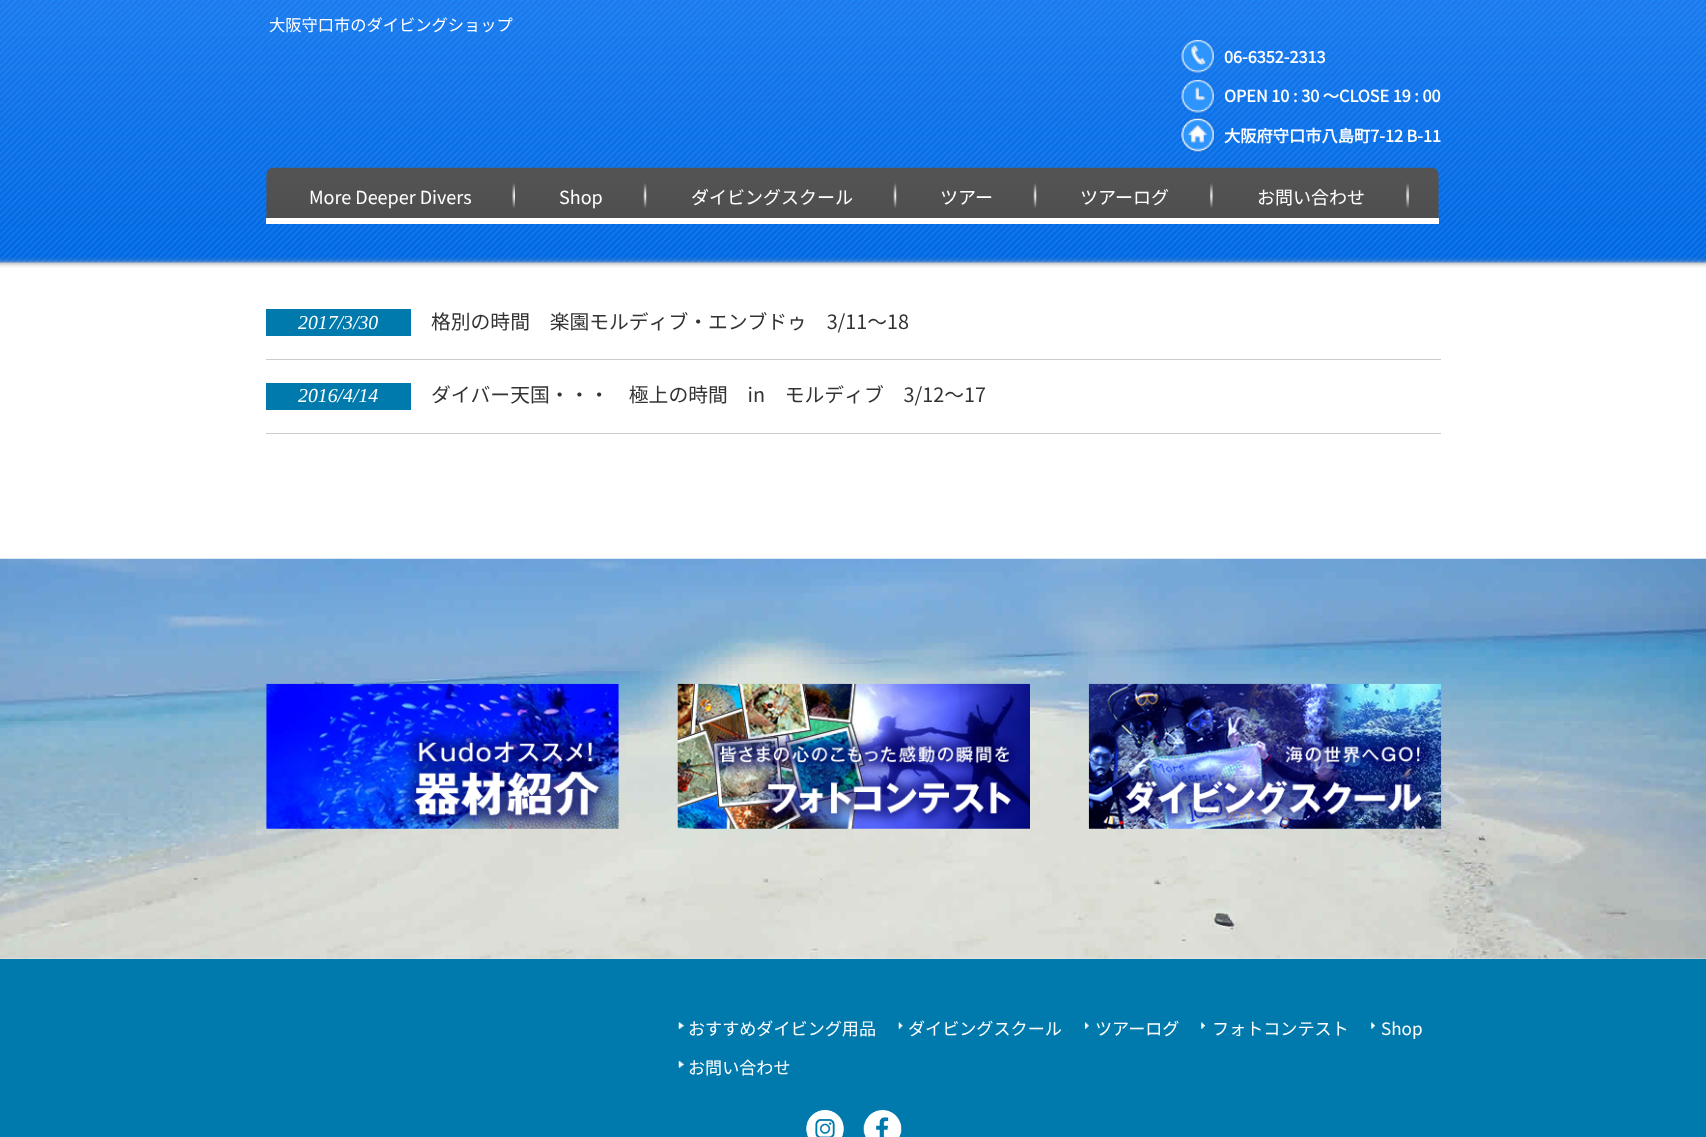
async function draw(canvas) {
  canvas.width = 1706
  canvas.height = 1137
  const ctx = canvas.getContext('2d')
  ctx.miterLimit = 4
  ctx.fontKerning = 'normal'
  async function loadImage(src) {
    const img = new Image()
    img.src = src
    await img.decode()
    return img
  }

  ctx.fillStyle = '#fff'
  ctx.fillRect(0, 0, 1706, 1137)
  ctx.drawImage(await loadImage('image0.png'), 0, 0, 1706, 268)
  ctx.font = '100 16.25px Noto Sans JP'
  ctx.fillText('大阪守口市のダイビングショップ', 269, 31)
  ctx.drawImage(await loadImage('image1.png'), 1180, 39, 35, 35)
  ctx.font = 'bold 16.25px Noto Sans JP'
  ctx.fillText('06-6352-2313', 1224, 63)
  ctx.drawImage(await loadImage('image2.png'), 1180, 79, 35, 35)
  ctx.fillText('OPEN 10 : 30 ～CLOSE 19 : 00', 1224, 102)
  ctx.drawImage(await loadImage('image3.png'), 1180, 117, 35, 36)
  ctx.fillText('大阪府守口市八島町7-12 B-11', 1224, 142)
  ctx.drawImage(await loadImage('image4.png'), 266, 167, 1173, 51)
  ctx.fillRect(266, 218, 1173, 6)
  ctx.drawImage(await loadImage('image5.png'), 512, 182, 3, 27)
  ctx.font = '100 18px Noto Sans JP'
  ctx.fillText('More Deeper Divers', 309, 204)
  ctx.drawImage(await loadImage('image6.png'), 643, 182, 4, 27)
  ctx.fillText('Shop', 559, 204)
  ctx.drawImage(await loadImage('image6.png'), 893, 182, 4, 27)
  ctx.fillText('ダイビングスクール', 691, 204)
  ctx.drawImage(await loadImage('image7.png'), 1033, 182, 4, 27)
  ctx.fillText('ツアー', 940, 204)
  ctx.drawImage(await loadImage('image8.png'), 1210, 182, 3, 27)
  ctx.fillText('ツアーログ', 1080, 204)
  ctx.drawImage(await loadImage('image9.png'), 1406, 183, 3, 26)
  ctx.fillText('お問い合わせ', 1257, 204)
  ctx.fillStyle = '#ccc'
  ctx.fillRect(266, 359, 1175, 1)
  ctx.fillStyle = '#007aac'
  ctx.fillRect(266, 309, 145, 27)
  ctx.font = 'italic 19.8px Liberation Serif'
  ctx.fillStyle = '#fff'
  ctx.fillText('2017/3/30', 298, 329)
  ctx.font = '100 19.8px Noto Sans JP'
  ctx.fillStyle = '#333'
  ctx.fillText('格別の時間　楽園モルディブ・エンブドゥ　3/11～18', 431, 329)
  ctx.fillStyle = '#ccc'
  ctx.fillRect(266, 433, 1175, 1)
  ctx.fillStyle = '#007aac'
  ctx.fillRect(266, 383, 145, 27)
  ctx.font = 'italic 19.8px Liberation Serif'
  ctx.fillStyle = '#fff'
  ctx.fillText('2016/4/14', 298, 402)
  ctx.font = '100 19.8px Noto Sans JP'
  ctx.fillStyle = '#333'
  ctx.fillText('ダイバー天国・・・　極上の時間　in　モルディブ　3/12～17', 431, 402)
  ctx.drawImage(await loadImage('image10.png'), 0, 558, 1706, 401)
  ctx.drawImage(await loadImage('image11.png'), 266, 683, 353, 146)
  ctx.drawImage(await loadImage('image12.png'), 677, 683, 353, 146)
  ctx.drawImage(await loadImage('image13.png'), 1088, 683, 354, 146)
  ctx.fillStyle = '#007aac'
  ctx.fillRect(0, 959, 1706, 178)
  ctx.drawImage(await loadImage('image14.png'), 678, 1022, 6, 7)
  ctx.font = '100 17.1px Noto Sans JP'
  ctx.fillStyle = '#fff'
  ctx.fillText('おすすめダイビング用品', 688, 1035)
  ctx.drawImage(await loadImage('image15.png'), 898, 1022, 5, 7)
  ctx.fillText('ダイビングスクール', 908, 1035)
  ctx.drawImage(await loadImage('image16.png'), 1085, 1022, 4, 7)
  ctx.fillText('ツアーログ', 1095, 1035)
  ctx.drawImage(await loadImage('image17.png'), 1201, 1022, 4, 7)
  ctx.fillText('フォトコンテスト', 1212, 1035)
  ctx.drawImage(await loadImage('image17.png'), 1371, 1022, 4, 7)
  ctx.fillText('Shop', 1381, 1035)
  ctx.drawImage(await loadImage('image18.png'), 678, 1061, 6, 7)
  ctx.fillText('お問い合わせ', 688, 1074)
  ctx.drawImage(await loadImage('image19.png'), 806, 1110, 38, 27)
  ctx.drawImage(await loadImage('image20.png'), 863, 1110, 39, 27)
}

draw(document.querySelector('canvas'))
